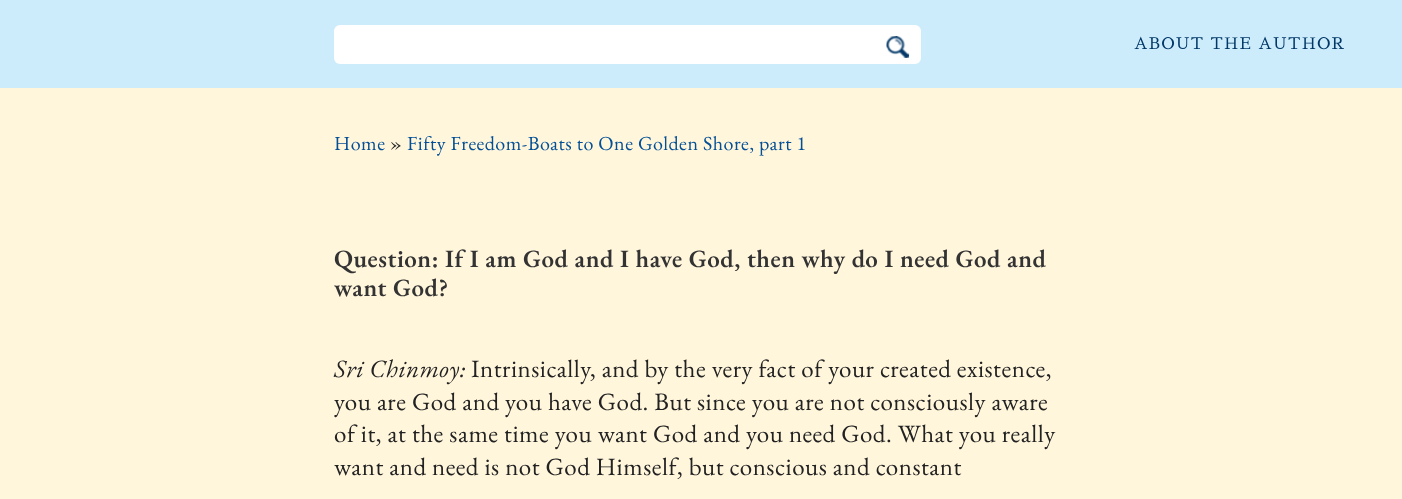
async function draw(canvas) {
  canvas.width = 1402
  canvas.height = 499
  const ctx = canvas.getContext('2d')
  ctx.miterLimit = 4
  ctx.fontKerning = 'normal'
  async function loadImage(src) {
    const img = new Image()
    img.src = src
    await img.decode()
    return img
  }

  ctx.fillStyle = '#fff6dc'
  ctx.fillRect(0, 0, 1402, 499)
  ctx.fillStyle = '#ccecfc'
  ctx.fillRect(0, 0, 1402, 88)
  ctx.fillStyle = '#fff'
  ctx.beginPath()
  ctx.roundRect(334, 25, 587, 39, 6)
  ctx.fill()
  ctx.drawImage(await loadImage('image0.png'), 886, 36, 24, 22)
  ctx.letterSpacing = '1.25px'
  ctx.font = '16px Sawarabi Mincho'
  ctx.fillStyle = '#023868'
  ctx.fillText('ABOUT THE AUTHOR', 1134, 49)
  ctx.letterSpacing = '0.5px'
  ctx.font = '20px EB Garamond'
  ctx.fillStyle = '#034f95'
  ctx.fillText('Home', 334, 150)
  ctx.fillStyle = '#222'
  ctx.fillText('»', 390, 150)
  ctx.fillStyle = '#034f95'
  ctx.fillText('Fifty Freedom-Boats to One Golden Shore, part 1', 407, 150)
  ctx.font = '600 25px EB Garamond'
  ctx.fillStyle = '#333'
  ctx.fillText('Question: If I am God and I have God, then why do I need God and', 334, 267)
  ctx.fillText('want God?', 334, 296)
  ctx.font = 'italic 25px EB Garamond'
  ctx.fillStyle = '#222'
  ctx.fillText('Sri Chinmoy:', 334, 377)
  ctx.font = '25px EB Garamond'
  ctx.fillText('Intrinsically, and by the very fact of your created existence,', 471, 377)
  ctx.fillText('you are God and you have God. But since you are not consciously aware', 334, 410)
  ctx.fillText('of it, at the same time you want God and you need God. What you really', 334, 442)
  ctx.fillText('want and need is not God Himself, but conscious and constant', 334, 475)
}

draw(document.querySelector('canvas'))
